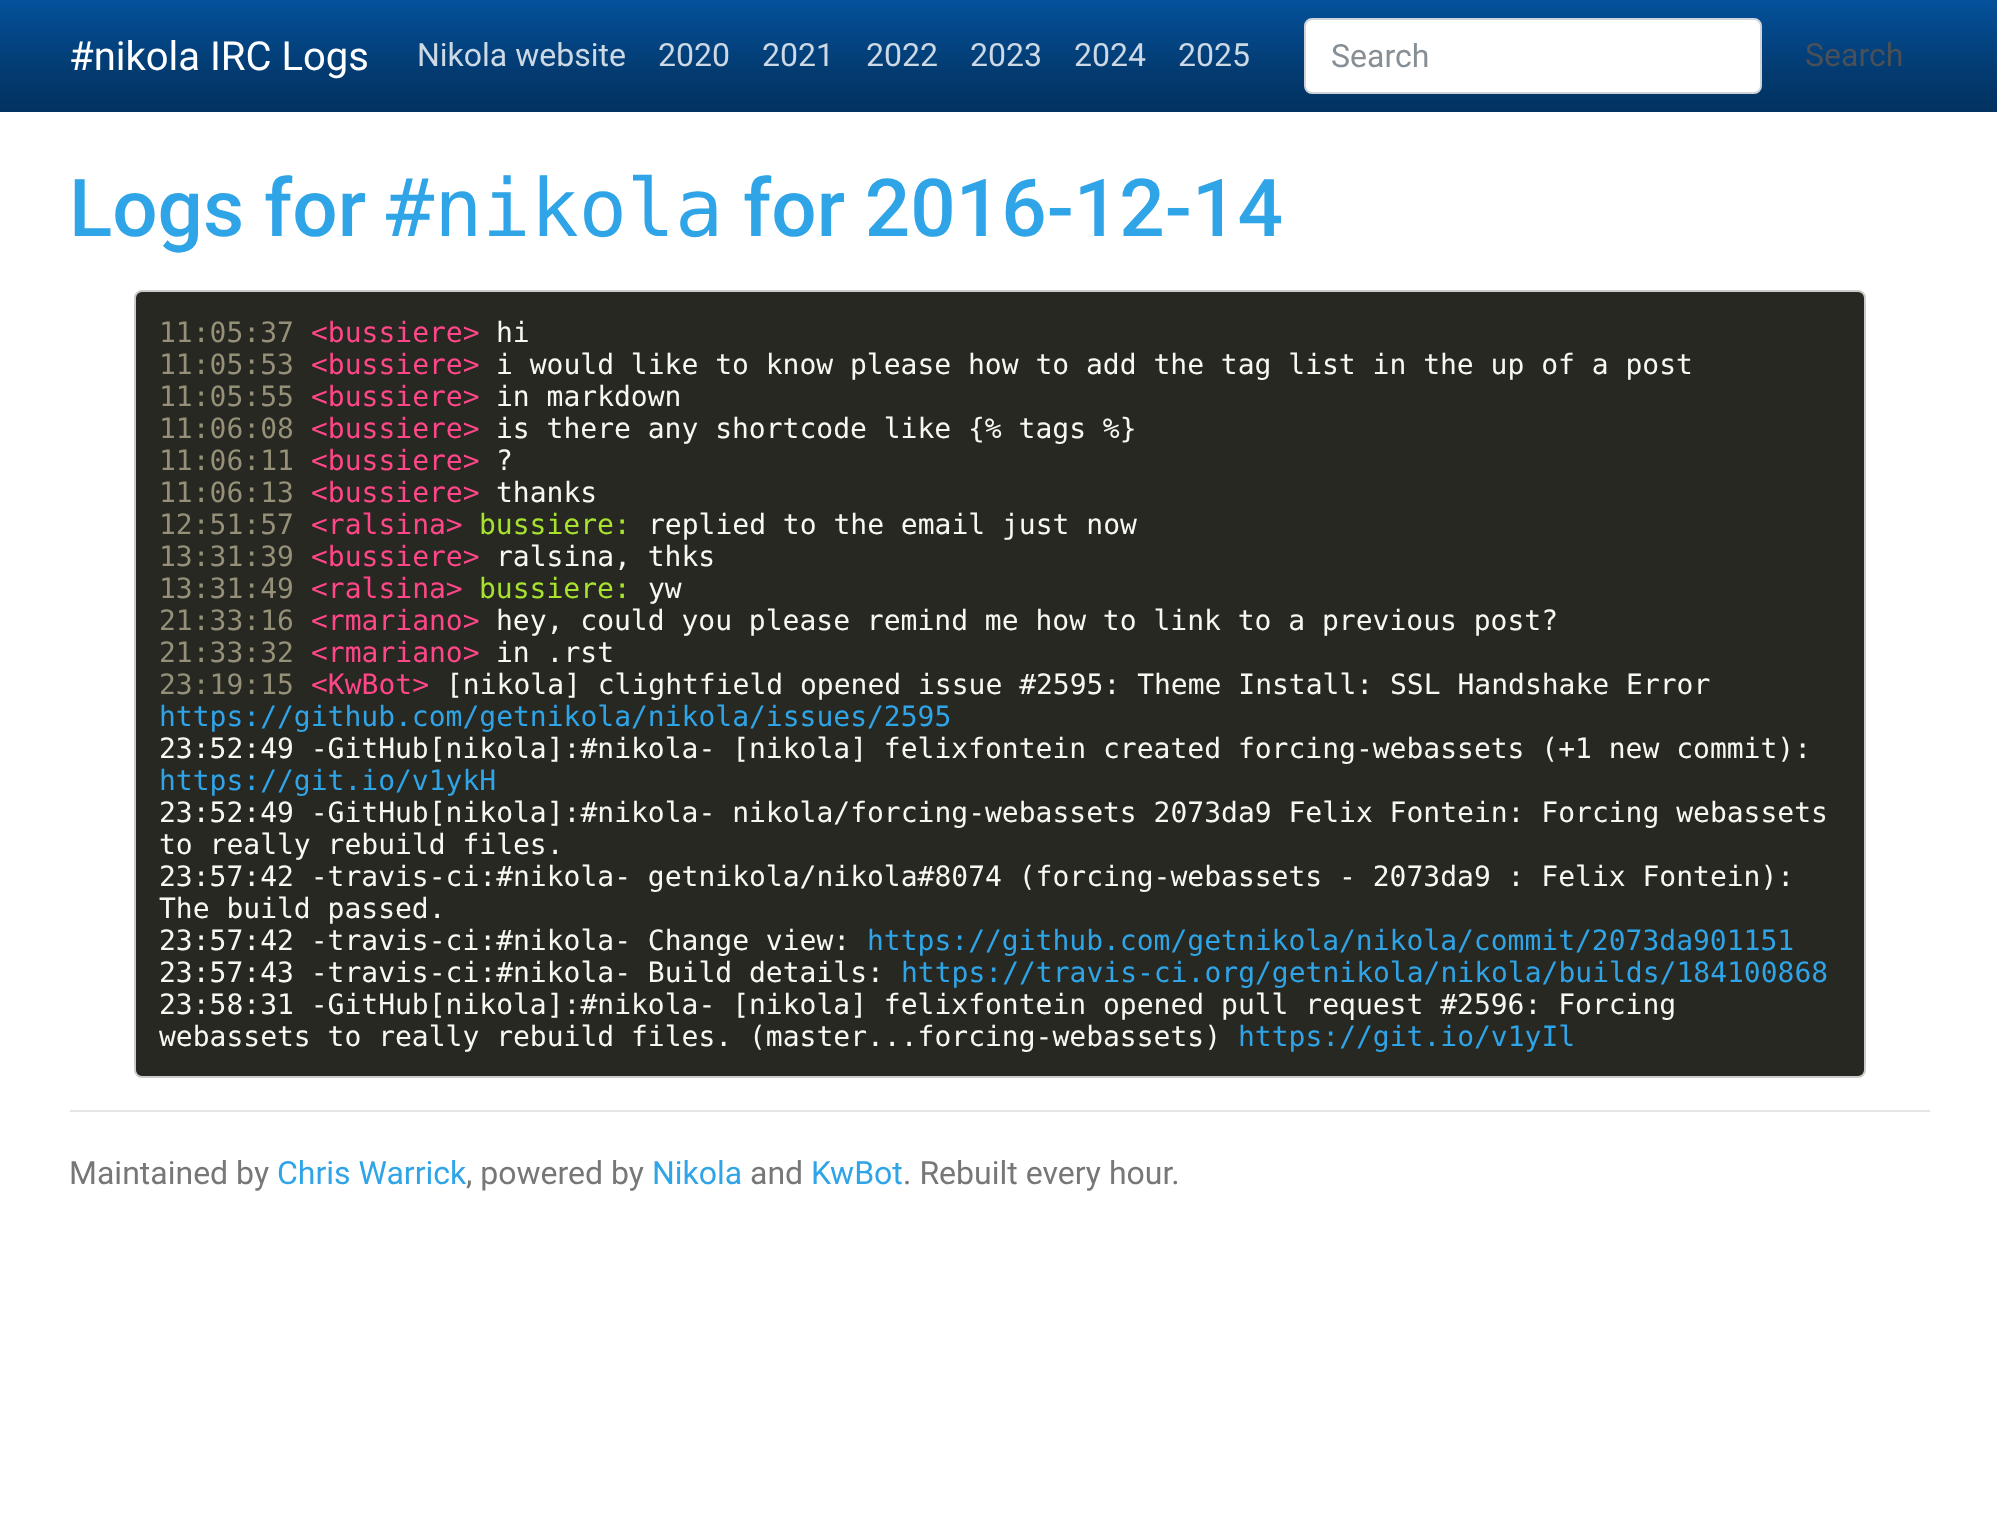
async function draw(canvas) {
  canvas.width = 1997
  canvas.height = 1537
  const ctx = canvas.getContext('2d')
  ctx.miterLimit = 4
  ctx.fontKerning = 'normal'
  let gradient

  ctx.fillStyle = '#fff'
  ctx.fillRect(0, 0, 1997, 1537)
  gradient = ctx.createLinearGradient(999, 0, 999, 112)
  gradient.addColorStop(0, '#04519b')
  gradient.addColorStop(0.6, '#033c73')
  gradient.addColorStop(1, '#02325f')
  ctx.fillStyle = gradient
  ctx.fillRect(0, 0, 1997, 112)
  ctx.font = '40px Roboto'
  ctx.fillStyle = '#fff'
  ctx.fillText('#nikola IRC Logs', 69, 70)
  ctx.font = '32px Roboto'
  ctx.fillStyle = '#cdd9e4'
  ctx.fillText('Nikola website', 417, 66)
  ctx.fillText('2020', 658, 66)
  ctx.fillText('2021', 762, 66)
  ctx.fillText('2022', 866, 66)
  ctx.fillText('2023', 970, 66)
  ctx.fillText('2024', 1074, 66)
  ctx.fillText('2025', 1178, 66)
  ctx.fillStyle = '#fff'
  ctx.beginPath()
  ctx.roundRect(1305, 19, 456, 74, 7)
  ctx.fill()
  ctx.strokeStyle = '#ced4da'
  ctx.lineWidth = 2
  ctx.stroke()
  ctx.fillStyle = '#868e96'
  ctx.fillText('Search', 1331, 67)
  ctx.fillStyle = '#495057'
  ctx.fillText('Search', 1805, 66)
  ctx.font = '500 80px Roboto'
  ctx.fillStyle = '#2fa4e7'
  ctx.fillText('Logs for', 69, 236)
  ctx.font = '80px DejaVu Sans Mono'
  ctx.fillText('#nikola', 386, 236)
  ctx.font = '500 80px Roboto'
  ctx.fillText('for 2016-12-14', 743, 236)
  ctx.fillStyle = '#272822'
  ctx.beginPath()
  ctx.roundRect(135, 291, 1730, 786, 7)
  ctx.fill()
  ctx.strokeStyle = '#ccc'
  ctx.stroke()
  ctx.font = '28px DejaVu Sans Mono'
  ctx.fillStyle = '#959077'
  ctx.fillText('11:05:37', 159, 342)
  ctx.fillStyle = '#ff4689'
  ctx.fillText('<bussiere>', 311, 342)
  ctx.fillStyle = '#f8f8f2'
  ctx.fillText('hi', 496, 342)
  ctx.fillStyle = '#959077'
  ctx.fillText('11:05:53', 159, 374)
  ctx.fillStyle = '#ff4689'
  ctx.fillText('<bussiere>', 311, 374)
  ctx.fillStyle = '#f8f8f2'
  ctx.fillText('i would like to know please how to add the tag list in the up of a post', 496, 374)
  ctx.fillStyle = '#959077'
  ctx.fillText('11:05:55', 159, 406)
  ctx.fillStyle = '#ff4689'
  ctx.fillText('<bussiere>', 311, 406)
  ctx.fillStyle = '#f8f8f2'
  ctx.fillText('in markdown', 496, 406)
  ctx.fillStyle = '#959077'
  ctx.fillText('11:06:08', 159, 438)
  ctx.fillStyle = '#ff4689'
  ctx.fillText('<bussiere>', 311, 438)
  ctx.fillStyle = '#f8f8f2'
  ctx.fillText('is there any shortcode like {% tags %}', 496, 438)
  ctx.fillStyle = '#959077'
  ctx.fillText('11:06:11', 159, 470)
  ctx.fillStyle = '#ff4689'
  ctx.fillText('<bussiere>', 311, 470)
  ctx.fillStyle = '#f8f8f2'
  ctx.fillText('?', 496, 470)
  ctx.fillStyle = '#959077'
  ctx.fillText('11:06:13', 159, 502)
  ctx.fillStyle = '#ff4689'
  ctx.fillText('<bussiere>', 311, 502)
  ctx.fillStyle = '#f8f8f2'
  ctx.fillText('thanks', 496, 502)
  ctx.fillStyle = '#959077'
  ctx.fillText('12:51:57', 159, 534)
  ctx.fillStyle = '#ff4689'
  ctx.fillText('<ralsina>', 311, 534)
  ctx.fillStyle = '#a6e22e'
  ctx.fillText('bussiere:', 479, 534)
  ctx.fillStyle = '#f8f8f2'
  ctx.fillText('replied to the email just now', 648, 534)
  ctx.fillStyle = '#959077'
  ctx.fillText('13:31:39', 159, 566)
  ctx.fillStyle = '#ff4689'
  ctx.fillText('<bussiere>', 311, 566)
  ctx.fillStyle = '#f8f8f2'
  ctx.fillText('ralsina, thks', 496, 566)
  ctx.fillStyle = '#959077'
  ctx.fillText('13:31:49', 159, 598)
  ctx.fillStyle = '#ff4689'
  ctx.fillText('<ralsina>', 311, 598)
  ctx.fillStyle = '#a6e22e'
  ctx.fillText('bussiere:', 479, 598)
  ctx.fillStyle = '#f8f8f2'
  ctx.fillText('yw', 648, 598)
  ctx.fillStyle = '#959077'
  ctx.fillText('21:33:16', 159, 630)
  ctx.fillStyle = '#ff4689'
  ctx.fillText('<rmariano>', 311, 630)
  ctx.fillStyle = '#f8f8f2'
  ctx.fillText('hey, could you please remind me how to link to a previous post?', 496, 630)
  ctx.fillStyle = '#959077'
  ctx.fillText('21:33:32', 159, 662)
  ctx.fillStyle = '#ff4689'
  ctx.fillText('<rmariano>', 311, 662)
  ctx.fillStyle = '#f8f8f2'
  ctx.fillText('in .rst', 496, 662)
  ctx.fillStyle = '#959077'
  ctx.fillText('23:19:15', 159, 694)
  ctx.fillStyle = '#ff4689'
  ctx.fillText('<KwBot>', 311, 694)
  ctx.fillStyle = '#f8f8f2'
  ctx.fillText('[nikola] clightfield opened issue #2595: Theme Install: SSL Handshake Error', 446, 694)
  ctx.fillStyle = '#2fa4e7'
  ctx.fillText('https://github.com/getnikola/nikola/issues/2595', 159, 726)
  ctx.fillStyle = '#f8f8f2'
  ctx.fillText('23:52:49 -GitHub[nikola]:#nikola- [nikola] felixfontein created forcing-webassets (+1 new commit):', 159, 758)
  ctx.fillStyle = '#2fa4e7'
  ctx.fillText('https://git.io/v1ykH', 159, 790)
  ctx.fillStyle = '#f8f8f2'
  ctx.fillText('23:52:49 -GitHub[nikola]:#nikola- nikola/forcing-webassets 2073da9 Felix Fontein: Forcing webassets', 159, 822)
  ctx.fillText('to really rebuild files.', 159, 854)
  ctx.fillText('23:57:42 -travis-ci:#nikola- getnikola/nikola#8074 (forcing-webassets - 2073da9 : Felix Fontein):', 159, 886)
  ctx.fillText('The build passed.', 159, 918)
  ctx.fillText('23:57:42 -travis-ci:#nikola- Change view:', 159, 950)
  ctx.fillStyle = '#2fa4e7'
  ctx.fillText('https://github.com/getnikola/nikola/commit/2073da901151', 867, 950)
  ctx.fillStyle = '#f8f8f2'
  ctx.fillText('23:57:43 -travis-ci:#nikola- Build details:', 159, 982)
  ctx.fillStyle = '#2fa4e7'
  ctx.fillText('https://travis-ci.org/getnikola/nikola/builds/184100868', 901, 982)
  ctx.fillStyle = '#f8f8f2'
  ctx.fillText('23:58:31 -GitHub[nikola]:#nikola- [nikola] felixfontein opened pull request #2596: Forcing', 159, 1014)
  ctx.fillText('webassets to really rebuild files. (master...forcing-webassets)', 159, 1046)
  ctx.fillStyle = '#2fa4e7'
  ctx.fillText('https://git.io/v1yIl', 1238, 1046)
  ctx.fillStyle = '#e5e5e5'
  ctx.fillRect(70, 1110, 1860, 2)
  ctx.font = '32px Roboto'
  ctx.fillStyle = '#777'
  ctx.fillText('Maintained by', 69, 1184)
  ctx.fillStyle = '#2fa4e7'
  ctx.fillText('Chris Warrick', 277, 1184)
  ctx.fillStyle = '#777'
  ctx.fillText(', powered by', 466, 1184)
  ctx.fillStyle = '#2fa4e7'
  ctx.fillText('Nikola', 652, 1184)
  ctx.fillStyle = '#777'
  ctx.fillText('and', 750, 1184)
  ctx.fillStyle = '#2fa4e7'
  ctx.fillText('KwBot', 811, 1184)
  ctx.fillStyle = '#777'
  ctx.fillText('. Rebuilt every hour.', 903, 1184)
}

draw(document.querySelector('canvas'))
